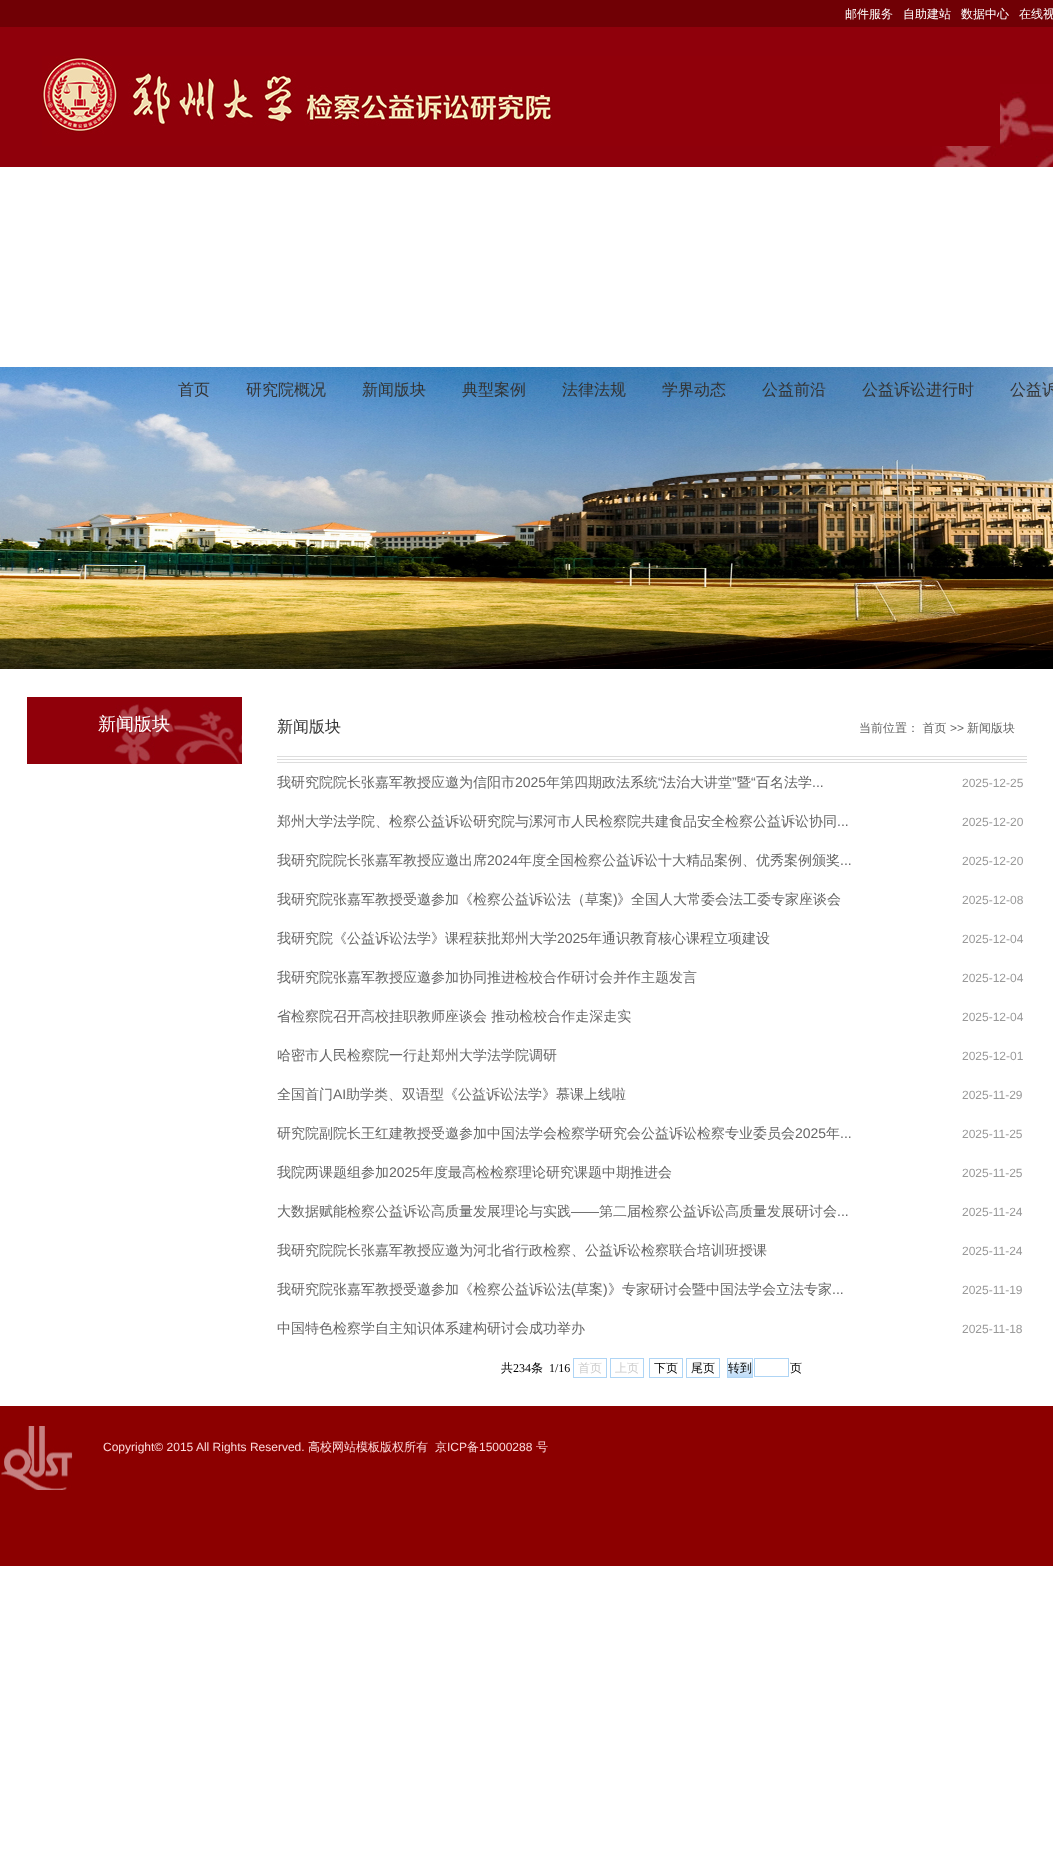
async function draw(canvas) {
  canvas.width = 1053
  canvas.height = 1868
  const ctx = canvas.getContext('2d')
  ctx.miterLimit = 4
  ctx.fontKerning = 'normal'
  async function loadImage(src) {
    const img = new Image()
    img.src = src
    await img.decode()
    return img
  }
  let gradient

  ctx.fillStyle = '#fff'
  ctx.fillRect(0, 0, 1053, 1868)
  ctx.fillStyle = '#700005'
  ctx.fillRect(0, 0, 1053, 27)
  ctx.font = '500 12px WenQuanYi Zen Hei'
  ctx.fillStyle = '#fff'
  ctx.fillText('邮件服务', 845, 18)
  ctx.fillText('自助建站', 903, 18)
  ctx.fillText('数据中心', 961, 18)
  ctx.fillText('在线视', 1019, 18)
  ctx.fillStyle = '#8f000b'
  ctx.fillRect(0, 27, 1053, 140)
  ctx.drawImage(await loadImage('image0.png'), 932, 84, 121, 83)
  ctx.drawImage(await loadImage('image1.png'), 42, 56, 958, 90)
  ctx.drawImage(await loadImage('image2.png'), 0, 367, 1053, 302)
  ctx.font = '500 16px WenQuanYi Zen Hei'
  ctx.fillStyle = '#333'
  ctx.fillText('首页', 178, 395)
  ctx.fillText('研究院概况', 246, 395)
  ctx.fillText('新闻版块', 362, 395)
  ctx.fillText('典型案例', 462, 395)
  ctx.fillText('法律法规', 562, 395)
  ctx.fillText('学界动态', 662, 395)
  ctx.fillText('公益前沿', 762, 395)
  ctx.fillText('公益诉讼进行时', 862, 395)
  ctx.fillText('公益诉', 1010, 395)
  ctx.drawImage(await loadImage('image3.png'), 27, 697, 215, 67)
  ctx.font = '500 18px WenQuanYi Zen Hei'
  ctx.fillStyle = '#fff'
  ctx.fillText('新闻版块', 98, 730)
  ctx.drawImage(await loadImage('image4.png'), 277, 756, 750, 7)
  ctx.font = '500 16px WenQuanYi Zen Hei'
  ctx.fillStyle = '#333'
  ctx.fillText('新闻版块', 277, 732)
  ctx.font = '500 12px WenQuanYi Zen Hei'
  ctx.fillStyle = '#666'
  ctx.fillText('当前位置： 首页', 859, 732)
  ctx.font = '12px Liberation Sans'
  ctx.fillText('>>', 950, 732)
  ctx.font = '500 12px WenQuanYi Zen Hei'
  ctx.fillText('新闻版块', 967, 732)
  ctx.font = '500 14px WenQuanYi Zen Hei'
  ctx.fillText('我研究院院长张嘉军教授应邀为信阳市', 277, 787)
  ctx.font = '14px Liberation Sans'
  ctx.fillText('2025', 515, 787)
  ctx.font = '500 14px WenQuanYi Zen Hei'
  ctx.fillText('年第四期政法系统', 546, 787)
  ctx.font = '14px Liberation Sans'
  ctx.fillText('“', 658, 787)
  ctx.font = '500 14px WenQuanYi Zen Hei'
  ctx.fillText('法治大讲堂', 662, 787)
  ctx.font = '14px Liberation Sans'
  ctx.fillText('”', 732, 787)
  ctx.font = '500 14px WenQuanYi Zen Hei'
  ctx.fillText('暨', 737, 787)
  ctx.font = '14px Liberation Sans'
  ctx.fillText('“', 751, 787)
  ctx.font = '500 14px WenQuanYi Zen Hei'
  ctx.fillText('百名法学', 756, 787)
  ctx.font = '14px Liberation Sans'
  ctx.fillText('...', 812, 787)
  ctx.font = '12px Liberation Sans'
  ctx.fillStyle = '#999'
  ctx.fillText('2025-12-25', 962, 787)
  ctx.font = '500 14px WenQuanYi Zen Hei'
  ctx.fillStyle = '#666'
  ctx.fillText('郑州大学法学院、检察公益诉讼研究院与漯河市人民检察院共建食品安全检察公益诉讼协同', 277, 826)
  ctx.font = '14px Liberation Sans'
  ctx.fillText('...', 837, 826)
  ctx.font = '12px Liberation Sans'
  ctx.fillStyle = '#999'
  ctx.fillText('2025-12-20', 962, 826)
  ctx.font = '500 14px WenQuanYi Zen Hei'
  ctx.fillStyle = '#666'
  ctx.fillText('我研究院院长张嘉军教授应邀出席', 277, 865)
  ctx.font = '14px Liberation Sans'
  ctx.fillText('2024', 487, 865)
  ctx.font = '500 14px WenQuanYi Zen Hei'
  ctx.fillText('年度全国检察公益诉讼十大精品案例、优秀案例颁奖', 518, 865)
  ctx.font = '14px Liberation Sans'
  ctx.fillText('...', 840, 865)
  ctx.font = '12px Liberation Sans'
  ctx.fillStyle = '#999'
  ctx.fillText('2025-12-20', 962, 865)
  ctx.font = '500 14px WenQuanYi Zen Hei'
  ctx.fillStyle = '#666'
  ctx.fillText('我研究院张嘉军教授受邀参加《检察公益诉讼法（草案', 277, 904)
  ctx.font = '14px Liberation Sans'
  ctx.fillText(')', 613, 904)
  ctx.font = '500 14px WenQuanYi Zen Hei'
  ctx.fillText('》全国人大常委会法工委专家座谈会', 617, 904)
  ctx.font = '12px Liberation Sans'
  ctx.fillStyle = '#999'
  ctx.fillText('2025-12-08', 962, 904)
  ctx.font = '500 14px WenQuanYi Zen Hei'
  ctx.fillStyle = '#666'
  ctx.fillText('我研究院《公益诉讼法学》课程获批郑州大学', 277, 943)
  ctx.font = '14px Liberation Sans'
  ctx.fillText('2025', 557, 943)
  ctx.font = '500 14px WenQuanYi Zen Hei'
  ctx.fillText('年通识教育核心课程立项建设', 588, 943)
  ctx.font = '12px Liberation Sans'
  ctx.fillStyle = '#999'
  ctx.fillText('2025-12-04', 962, 943)
  ctx.font = '500 14px WenQuanYi Zen Hei'
  ctx.fillStyle = '#666'
  ctx.fillText('我研究院张嘉军教授应邀参加协同推进检校合作研讨会并作主题发言', 277, 982)
  ctx.font = '12px Liberation Sans'
  ctx.fillStyle = '#999'
  ctx.fillText('2025-12-04', 962, 982)
  ctx.font = '500 14px WenQuanYi Zen Hei'
  ctx.fillStyle = '#666'
  ctx.fillText('省检察院召开高校挂职教师座谈会 推动检校合作走深走实', 277, 1021)
  ctx.font = '12px Liberation Sans'
  ctx.fillStyle = '#999'
  ctx.fillText('2025-12-04', 962, 1021)
  ctx.font = '500 14px WenQuanYi Zen Hei'
  ctx.fillStyle = '#666'
  ctx.fillText('哈密市人民检察院一行赴郑州大学法学院调研', 277, 1060)
  ctx.font = '12px Liberation Sans'
  ctx.fillStyle = '#999'
  ctx.fillText('2025-12-01', 962, 1060)
  ctx.font = '500 14px WenQuanYi Zen Hei'
  ctx.fillStyle = '#666'
  ctx.fillText('全国首门', 277, 1099)
  ctx.font = '14px Liberation Sans'
  ctx.fillText('AI', 333, 1099)
  ctx.font = '500 14px WenQuanYi Zen Hei'
  ctx.fillText('助学类、双语型《公益诉讼法学》慕课上线啦', 346, 1099)
  ctx.font = '12px Liberation Sans'
  ctx.fillStyle = '#999'
  ctx.fillText('2025-11-29', 962, 1099)
  ctx.font = '500 14px WenQuanYi Zen Hei'
  ctx.fillStyle = '#666'
  ctx.fillText('研究院副院长王红建教授受邀参加中国法学会检察学研究会公益诉讼检察专业委员会', 277, 1138)
  ctx.font = '14px Liberation Sans'
  ctx.fillText('2025', 795, 1138)
  ctx.font = '500 14px WenQuanYi Zen Hei'
  ctx.fillText('年', 826, 1138)
  ctx.font = '14px Liberation Sans'
  ctx.fillText('...', 840, 1138)
  ctx.font = '12px Liberation Sans'
  ctx.fillStyle = '#999'
  ctx.fillText('2025-11-25', 962, 1138)
  ctx.font = '500 14px WenQuanYi Zen Hei'
  ctx.fillStyle = '#666'
  ctx.fillText('我院两课题组参加', 277, 1177)
  ctx.font = '14px Liberation Sans'
  ctx.fillText('2025', 389, 1177)
  ctx.font = '500 14px WenQuanYi Zen Hei'
  ctx.fillText('年度最高检检察理论研究课题中期推进会', 420, 1177)
  ctx.font = '12px Liberation Sans'
  ctx.fillStyle = '#999'
  ctx.fillText('2025-11-25', 962, 1177)
  ctx.font = '500 14px WenQuanYi Zen Hei'
  ctx.fillStyle = '#666'
  ctx.fillText('大数据赋能检察公益诉讼高质量发展理论与实践', 277, 1216)
  ctx.font = '14px Liberation Sans'
  ctx.fillText('——', 571, 1216)
  ctx.font = '500 14px WenQuanYi Zen Hei'
  ctx.fillText('第二届检察公益诉讼高质量发展研讨会', 599, 1216)
  ctx.font = '14px Liberation Sans'
  ctx.fillText('...', 837, 1216)
  ctx.font = '12px Liberation Sans'
  ctx.fillStyle = '#999'
  ctx.fillText('2025-11-24', 962, 1216)
  ctx.font = '500 14px WenQuanYi Zen Hei'
  ctx.fillStyle = '#666'
  ctx.fillText('我研究院院长张嘉军教授应邀为河北省行政检察、公益诉讼检察联合培训班授课', 277, 1255)
  ctx.font = '12px Liberation Sans'
  ctx.fillStyle = '#999'
  ctx.fillText('2025-11-24', 962, 1255)
  ctx.font = '500 14px WenQuanYi Zen Hei'
  ctx.fillStyle = '#666'
  ctx.fillText('我研究院张嘉军教授受邀参加《检察公益诉讼法', 277, 1294)
  ctx.font = '14px Liberation Sans'
  ctx.fillText('(', 571, 1294)
  ctx.font = '500 14px WenQuanYi Zen Hei'
  ctx.fillText('草案', 575, 1294)
  ctx.font = '14px Liberation Sans'
  ctx.fillText(')', 603, 1294)
  ctx.font = '500 14px WenQuanYi Zen Hei'
  ctx.fillText('》专家研讨会暨中国法学会立法专家', 608, 1294)
  ctx.font = '14px Liberation Sans'
  ctx.fillText('...', 832, 1294)
  ctx.font = '12px Liberation Sans'
  ctx.fillStyle = '#999'
  ctx.fillText('2025-11-19', 962, 1294)
  ctx.font = '500 14px WenQuanYi Zen Hei'
  ctx.fillStyle = '#666'
  ctx.fillText('中国特色检察学自主知识体系建构研讨会成功举办', 277, 1333)
  ctx.font = '12px Liberation Sans'
  ctx.fillStyle = '#999'
  ctx.fillText('2025-11-18', 962, 1333)
  ctx.font = '500 12px WenQuanYi Zen Hei'
  ctx.fillStyle = '#000'
  ctx.fillText('共', 501, 1372)
  ctx.font = '12px Liberation Serif'
  ctx.fillText('234', 513, 1372)
  ctx.font = '500 12px WenQuanYi Zen Hei'
  ctx.fillText('条', 531, 1372)
  ctx.font = '12px Liberation Serif'
  ctx.fillText('1/16', 549, 1372)
  ctx.strokeStyle = '#afd5f5'
  ctx.strokeRect(573.5, 1358.5, 33, 19)
  ctx.font = '500 12px WenQuanYi Zen Hei'
  ctx.fillStyle = '#ccc'
  ctx.fillText('首页', 578, 1372)
  ctx.strokeRect(610.5, 1358.5, 33, 19)
  ctx.fillText('上页', 615, 1372)
  ctx.strokeRect(649.5, 1358.5, 33, 19)
  ctx.fillStyle = '#000'
  ctx.fillText('下页', 654, 1372)
  ctx.strokeRect(686.5, 1358.5, 33, 19)
  ctx.fillText('尾页', 691, 1372)
  gradient = ctx.createLinearGradient(728, 1359, 728, 1377)
  gradient.addColorStop(0, '#fff')
  gradient.addColorStop(1, '#bddbf7')
  ctx.fillStyle = gradient
  ctx.fillRect(728, 1360, 24, 17)
  ctx.strokeRect(727.5, 1358.5, 25, 19)
  ctx.fillStyle = '#000'
  ctx.fillText('转到', 728, 1372)
  ctx.strokeRect(754.5, 1358.5, 34, 18)
  ctx.fillText('页', 790, 1372)
  ctx.fillStyle = '#8c0000'
  ctx.fillRect(0, 1406, 1053, 160)
  ctx.drawImage(await loadImage('image5.png'), 1, 1426, 72, 64)
  ctx.font = '12px Liberation Sans'
  ctx.fillStyle = '#fcd8d8'
  ctx.fillText('Copyright© 2015 All Rights Reserved.', 103, 1451)
  ctx.font = '500 12px WenQuanYi Zen Hei'
  ctx.fillText('高校网站模板版权所有', 308, 1451)
  ctx.fillText('京', 435, 1451)
  ctx.font = '12px Liberation Sans'
  ctx.fillText('ICP', 447, 1451)
  ctx.font = '500 12px WenQuanYi Zen Hei'
  ctx.fillText('备', 467, 1451)
  ctx.font = '12px Liberation Sans'
  ctx.fillText('15000288', 479, 1451)
  ctx.font = '500 12px WenQuanYi Zen Hei'
  ctx.fillText('号', 536, 1451)
}

draw(document.querySelector('canvas'))
